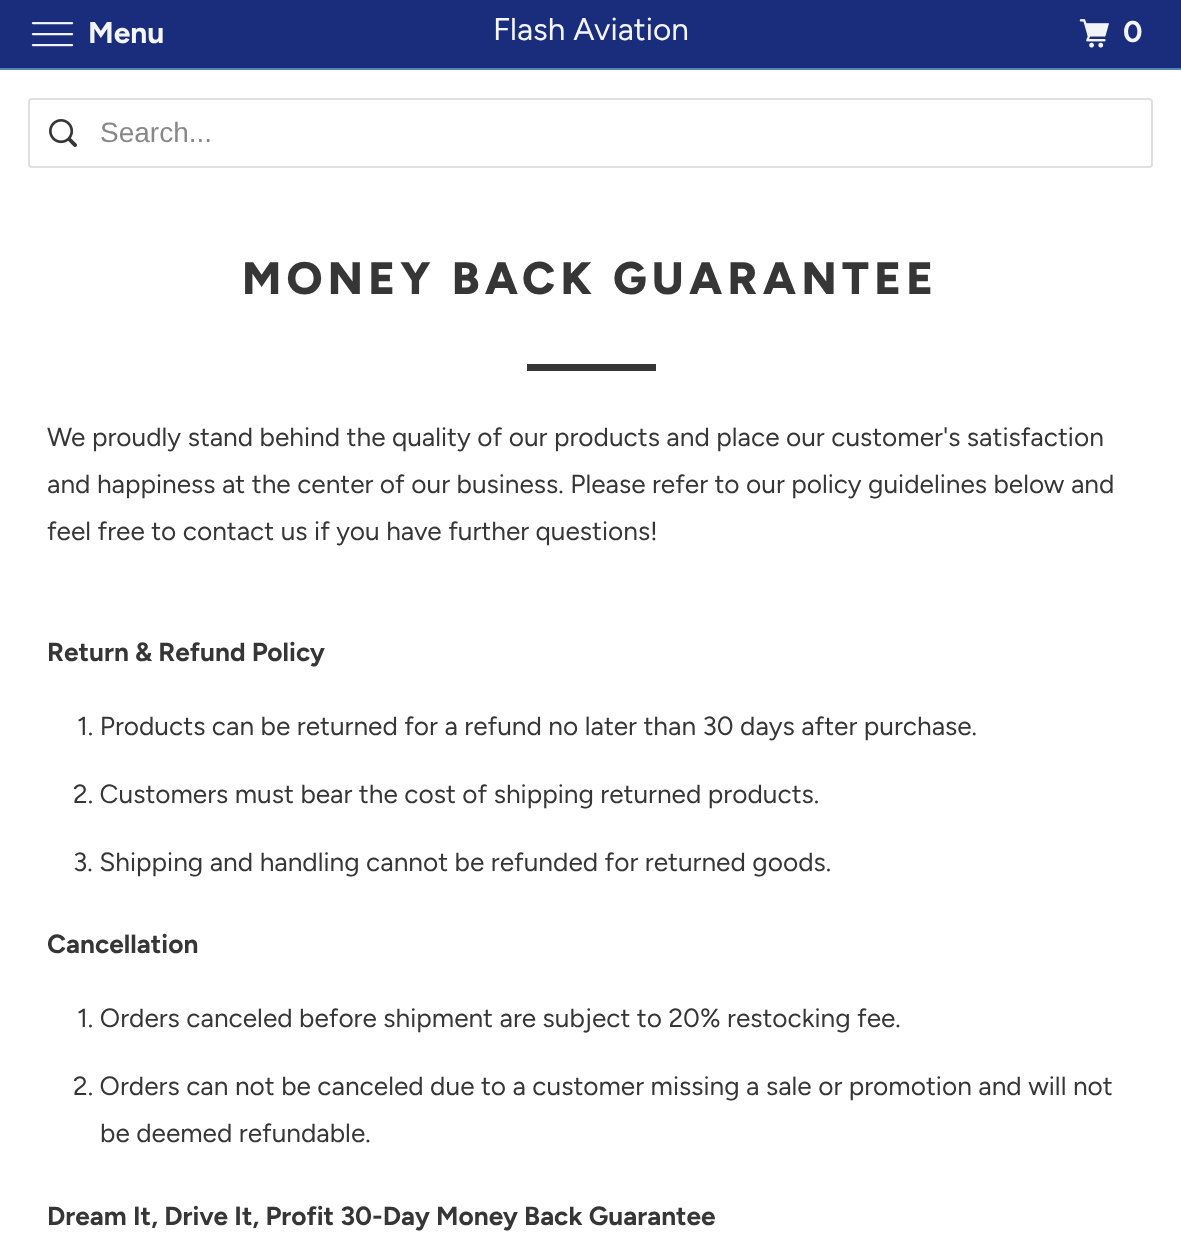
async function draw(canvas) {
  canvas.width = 1181
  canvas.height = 1256
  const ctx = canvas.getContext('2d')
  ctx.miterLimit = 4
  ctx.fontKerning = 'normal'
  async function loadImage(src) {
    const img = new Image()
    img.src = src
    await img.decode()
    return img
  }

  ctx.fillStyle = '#fff'
  ctx.fillRect(0, 0, 1181, 1256)
  ctx.fillStyle = '#192d7c'
  ctx.fillRect(0, 0, 1181, 68)
  ctx.fillStyle = '#5584a8'
  ctx.fillRect(0, 68, 1181, 2)
  ctx.drawImage(await loadImage('image0.png'), 31, 22, 43, 25)
  ctx.font = 'bold 30px Figtree'
  ctx.fillStyle = '#f4f5f9'
  ctx.fillText('Menu', 88, 43)
  ctx.font = '31.5px Figtree'
  ctx.fillText('Flash Aviation', 493, 40)
  ctx.drawImage(await loadImage('image1.png'), 1079, 19, 30, 29)
  ctx.font = 'bold 30px Figtree'
  ctx.fillText('0', 1123, 42)
  ctx.beginPath()
  ctx.roundRect(29, 99, 1123, 68, 3)
  ctx.strokeStyle = '#dfdfdf'
  ctx.lineWidth = 2
  ctx.stroke()
  ctx.drawImage(await loadImage('image2.png'), 49, 119, 28, 28)
  ctx.font = '28px Liberation Sans'
  ctx.fillStyle = '#888'
  ctx.fillText('Search...', 100, 142)
  ctx.letterSpacing = '5.25px'
  ctx.font = '800 45.5px Figtree'
  ctx.fillStyle = '#363636'
  ctx.fillText('MONEY BACK GUARANTEE', 242, 294)
  ctx.fillRect(527, 364, 129, 7)
  ctx.letterSpacing = '0px'
  ctx.font = '26.25px Figtree'
  ctx.fillText('We proudly stand behind the quality of our products and place our customer\'s satisfaction', 47, 446)
  ctx.fillText('and happiness at the center of our business. Please refer to our policy guidelines below and', 47, 493)
  ctx.fillText('feel free to contact us if you have further questions!', 47, 540)
  ctx.font = 'bold 26.25px Figtree'
  ctx.fillText('Return & Refund Policy', 47, 661)
  ctx.font = '26.25px Figtree'
  ctx.fillText('1. Products can be returned for a refund no later than 30 days after purchase.', 77, 735)
  ctx.fillText('2. Customers must bear the cost of shipping returned products.', 73, 803)
  ctx.fillText('3. Shipping and handling cannot be refunded for returned goods.', 73, 871)
  ctx.font = 'bold 26.25px Figtree'
  ctx.fillText('Cancellation', 47, 953)
  ctx.font = '26.25px Figtree'
  ctx.fillText('1. Orders canceled before shipment are subject to 20% restocking fee.', 77, 1027)
  ctx.fillText('2. Orders can not be canceled due to a customer missing a sale or promotion and will not', 73, 1095)
  ctx.fillText('be deemed refundable.', 100, 1142)
  ctx.font = 'bold 26.25px Figtree'
  ctx.fillText('Dream It, Drive It, Profit 30-Day Money Back Guarantee', 47, 1225)
}

draw(document.querySelector('canvas'))
